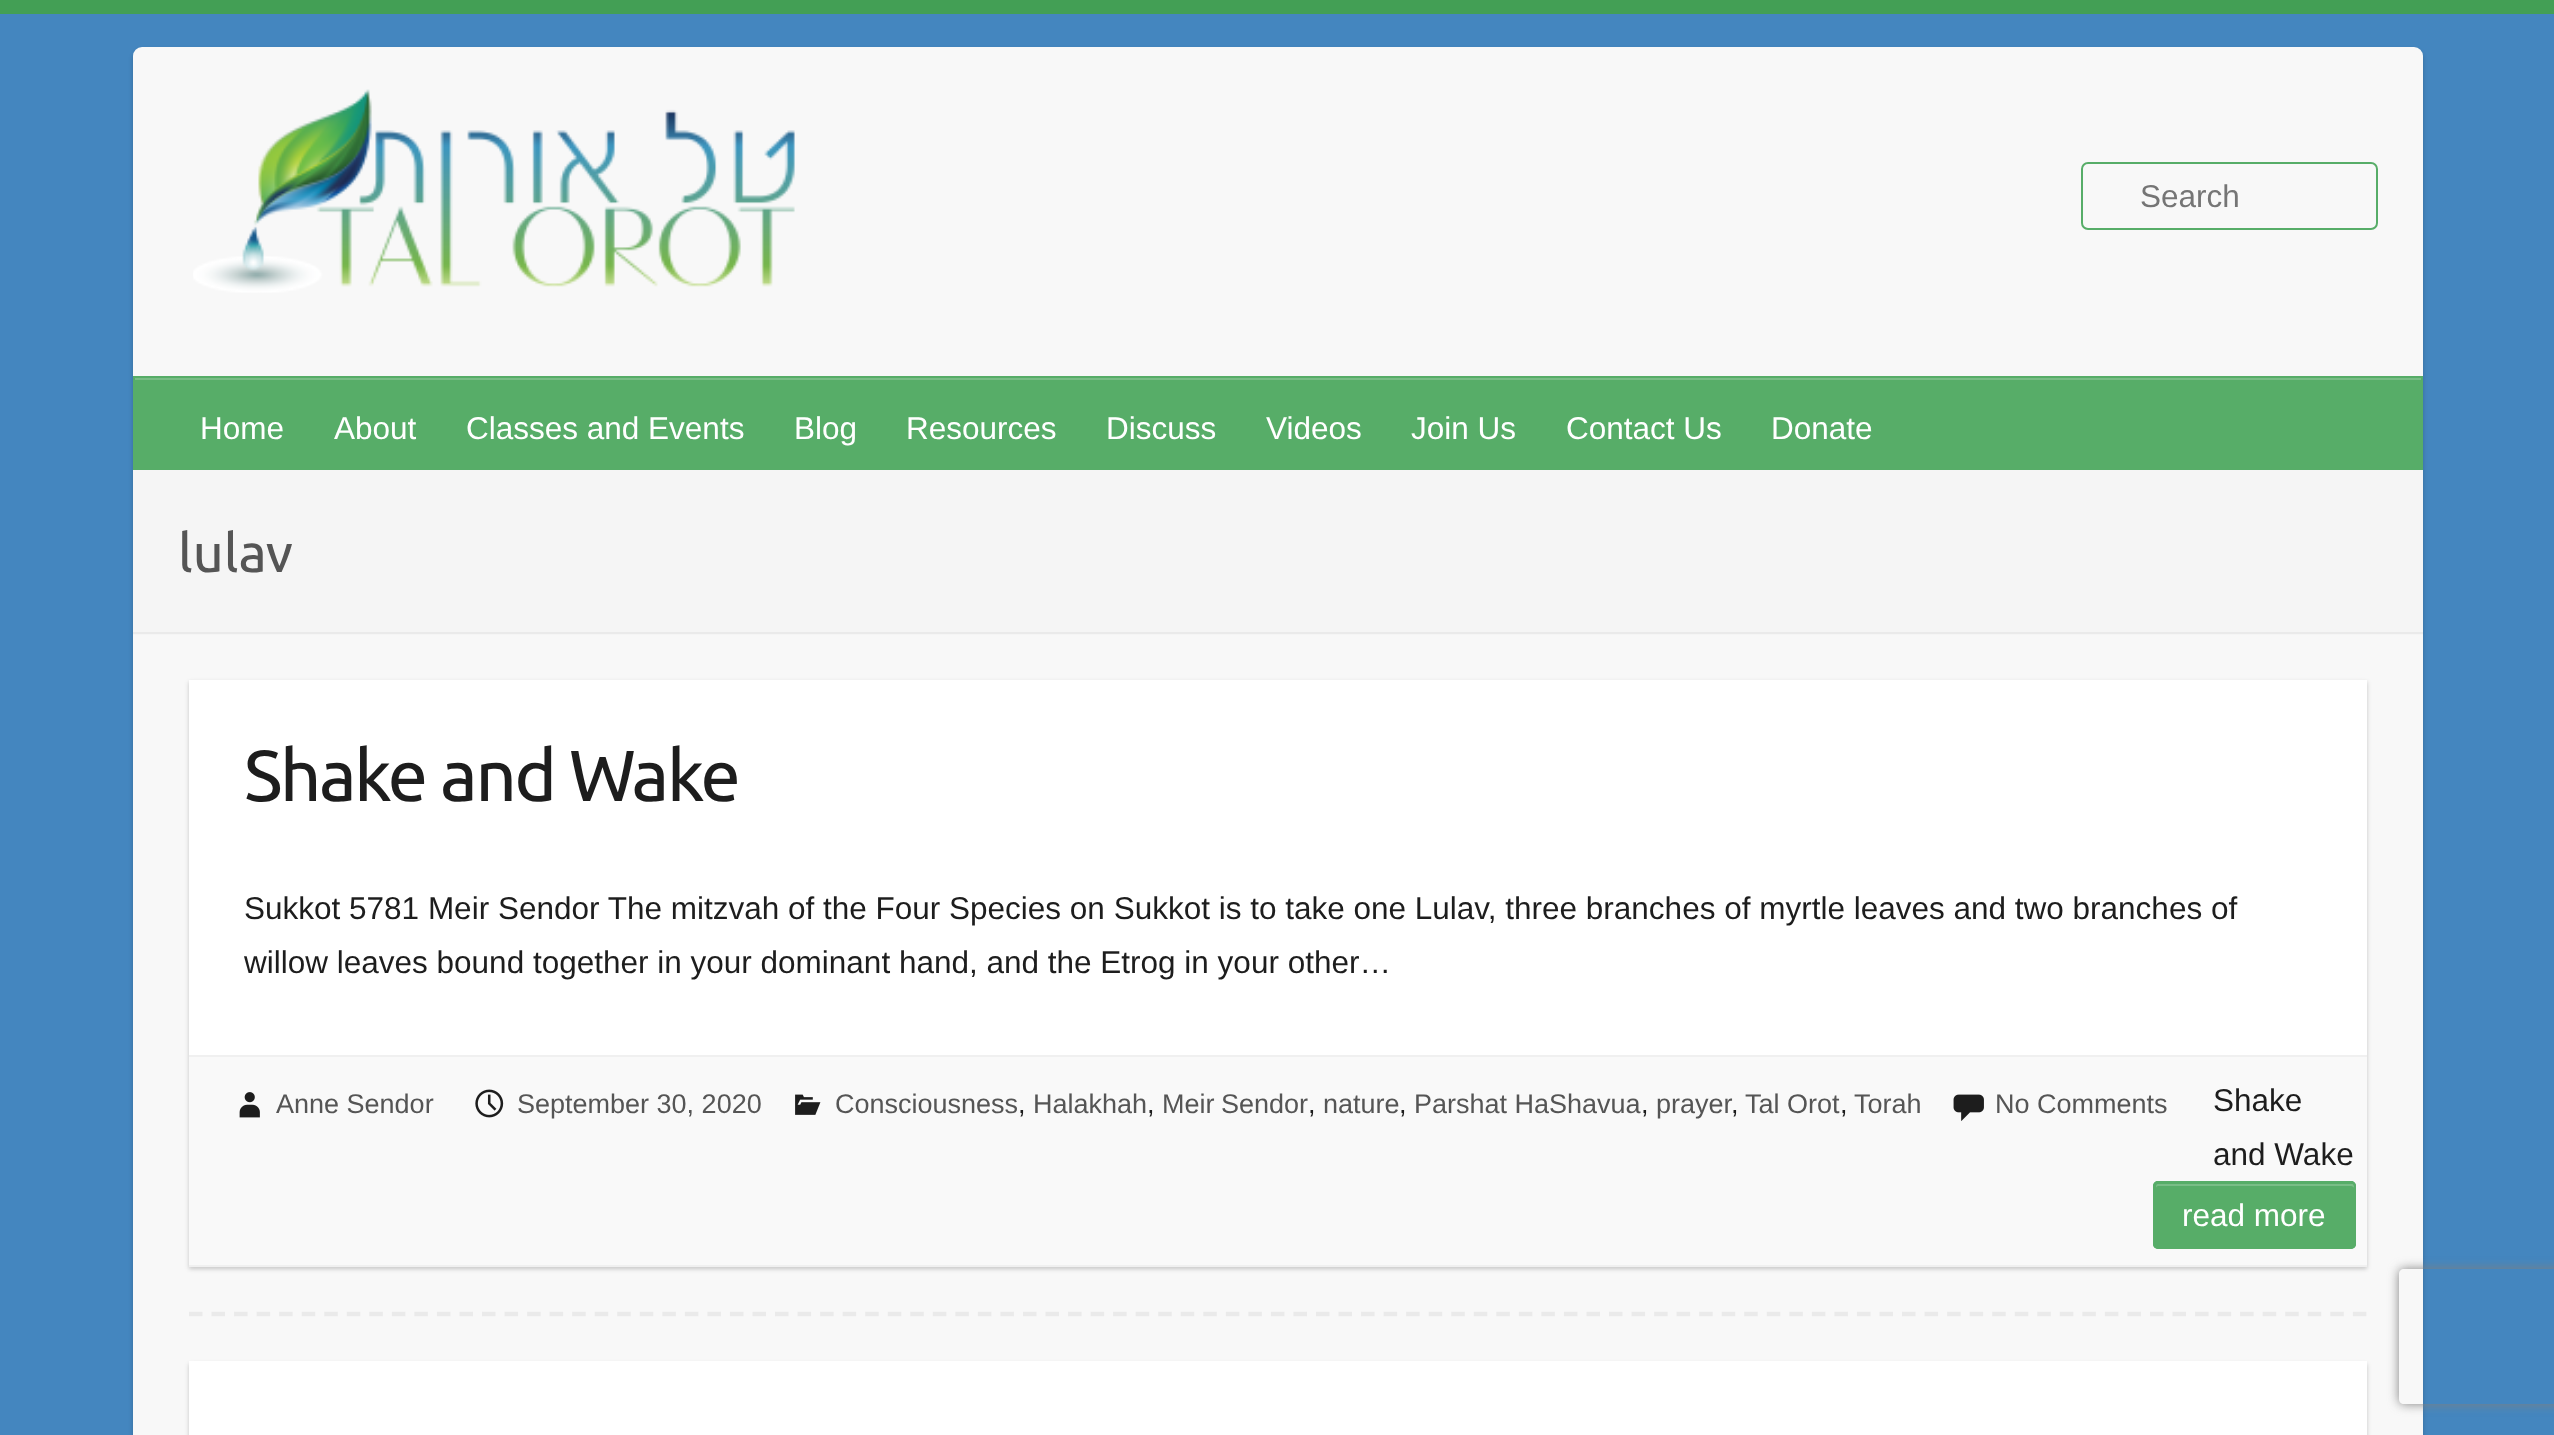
async function draw(canvas) {
  canvas.width = 2554
  canvas.height = 1435
  const ctx = canvas.getContext('2d')
  ctx.miterLimit = 4
  ctx.fontKerning = 'normal'
  async function loadImage(src) {
    const img = new Image()
    img.src = src
    await img.decode()
    return img
  }

  ctx.fillStyle = '#4486bf'
  ctx.fillRect(0, 0, 2554, 1435)
  ctx.fillStyle = '#439f55'
  ctx.fillRect(0, 0, 2554, 14)
  ctx.fillStyle = '#00000033'
  ctx.filter = 'blur(2px)'
  ctx.beginPath()
  ctx.roundRect(133, 50, 2290, 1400, 9)
  ctx.fill()
  ctx.filter = 'none'
  ctx.fillStyle = '#f8f8f8'
  ctx.beginPath()
  ctx.roundRect(133, 47, 2290, 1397, 9)
  ctx.fill()
  ctx.drawImage(await loadImage('image0.png'), 193, 89, 602, 204)
  ctx.beginPath()
  ctx.roundRect(2082, 163, 295, 66, 6)
  ctx.strokeStyle = '#57ad68'
  ctx.lineWidth = 2
  ctx.stroke()
  ctx.font = '31.5px Liberation Sans'
  ctx.fillStyle = '#757575'
  ctx.fillText('Search', 2140, 207)
  ctx.fillStyle = '#57ad68'
  ctx.fillRect(133, 376, 2290, 94)
  ctx.fillStyle = '#79bd86'
  ctx.fillRect(135, 378, 2286, 2)
  ctx.fillStyle = '#fff'
  ctx.fillText('Home', 200, 439)
  ctx.fillText('About', 334, 439)
  ctx.fillText('Classes and Events', 466, 439)
  ctx.fillText('Blog', 794, 439)
  ctx.fillText('Resources', 906, 439)
  ctx.fillText('Discuss', 1106, 439)
  ctx.fillText('Videos', 1266, 439)
  ctx.fillText('Join Us', 1411, 439)
  ctx.fillText('Contact Us', 1566, 439)
  ctx.fillText('Donate', 1771, 439)
  ctx.fillStyle = '#f5f5f5'
  ctx.fillRect(133, 470, 2290, 165)
  ctx.fillStyle = '#eaeaea'
  ctx.fillRect(133, 632, 2290, 2)
  ctx.font = '54px Ubuntu'
  ctx.fillStyle = '#555'
  ctx.fillText('lulav', 178, 572)
  ctx.fillStyle = '#00000033'
  ctx.filter = 'blur(2px)'
  ctx.beginPath()
  ctx.rect(189, 682, 2178, 587)
  ctx.fill()
  ctx.filter = 'none'
  ctx.fillStyle = '#fff'
  ctx.fillRect(189, 680, 2178, 375)
  ctx.letterSpacing = '-2.25px'
  ctx.font = '72px Ubuntu'
  ctx.fillStyle = '#1d1d1d'
  ctx.fillText('Shake and Wake', 244, 801)
  ctx.letterSpacing = '0px'
  ctx.font = '31.5px Liberation Sans'
  ctx.fillText('Sukkot 5781 Meir Sendor The mitzvah of the Four Species on Sukkot is to take one Lulav, three branches of myrtle leaves and two branches of', 244, 919)
  ctx.fillText('willow leaves bound together in your dominant hand, and the Etrog in your other…', 244, 973)
  ctx.fillStyle = '#f9f9f9'
  ctx.fillRect(189, 1057, 2178, 208)
  ctx.fillStyle = '#f0f0f0'
  ctx.fillRect(189, 1055, 2178, 2)
  ctx.fillRect(189, 1265, 2178, 2)
  ctx.drawImage(await loadImage('image1.png'), 239, 1092, 21, 26)
  ctx.font = '27px Liberation Sans'
  ctx.fillStyle = '#555'
  ctx.fillText('Anne Sendor', 276, 1113)
  ctx.drawImage(await loadImage('image2.png'), 475, 1089, 29, 29)
  ctx.fillText('September 30, 2020', 517, 1113)
  ctx.drawImage(await loadImage('image3.png'), 795, 1094, 26, 21)
  ctx.fillText('Consciousness', 835, 1113)
  ctx.fillStyle = '#1d1d1d'
  ctx.fillText(',', 1018, 1113)
  ctx.fillStyle = '#555'
  ctx.fillText('Halakhah', 1033, 1113)
  ctx.fillStyle = '#1d1d1d'
  ctx.fillText(',', 1147, 1113)
  ctx.wordSpacing = '-1px'
  ctx.fillStyle = '#555'
  ctx.fillText('Meir Sendor', 1162, 1113)
  ctx.wordSpacing = '0px'
  ctx.fillStyle = '#1d1d1d'
  ctx.fillText(',', 1308, 1113)
  ctx.fillStyle = '#555'
  ctx.fillText('nature', 1323, 1113)
  ctx.fillStyle = '#1d1d1d'
  ctx.fillText(',', 1399, 1113)
  ctx.fillStyle = '#555'
  ctx.fillText('Parshat HaShavua', 1414, 1113)
  ctx.fillStyle = '#1d1d1d'
  ctx.fillText(',', 1641, 1113)
  ctx.fillStyle = '#555'
  ctx.fillText('prayer', 1656, 1113)
  ctx.fillStyle = '#1d1d1d'
  ctx.fillText(',', 1731, 1113)
  ctx.fillStyle = '#555'
  ctx.fillText('Tal Orot', 1745, 1113)
  ctx.fillStyle = '#1d1d1d'
  ctx.fillText(',', 1840, 1113)
  ctx.fillStyle = '#555'
  ctx.fillText('Torah', 1854, 1113)
  ctx.drawImage(await loadImage('image4.png'), 1953, 1094, 31, 27)
  ctx.fillText('No Comments', 1995, 1113)
  ctx.font = '31.5px Liberation Sans'
  ctx.fillStyle = '#1d1d1d'
  ctx.fillText('Shake', 2213, 1111)
  ctx.fillText('and Wake', 2213, 1165)
  ctx.fillStyle = '#57ad68'
  ctx.beginPath()
  ctx.roundRect(2153, 1181, 203, 68, 5)
  ctx.fill()
  ctx.fillStyle = '#79bd86'
  ctx.beginPath()
  ctx.moveTo(2158, 1186)
  ctx.lineTo(2351, 1186)
  ctx.bezierCurveTo(2352, 1186, 2354, 1187, 2354, 1188)
  ctx.bezierCurveTo(2354, 1186, 2354, 1184, 2352, 1184)
  ctx.lineTo(2158, 1184)
  ctx.bezierCurveTo(2156, 1184, 2156, 1186, 2156, 1188)
  ctx.bezierCurveTo(2156, 1187, 2157, 1186, 2158, 1186)
  ctx.closePath()
  ctx.fill()
  ctx.beginPath()
  ctx.roundRect(2154, 1182, 201, 66, 4)
  ctx.stroke()
  ctx.fillStyle = '#fff'
  ctx.fillText('read more', 2182, 1226)
  ctx.beginPath()
  ctx.moveTo(189, 1314)
  ctx.lineTo(2367, 1314)
  ctx.strokeStyle = '#eaeaea'
  ctx.lineWidth = 4.5
  ctx.setLineDash([13.5, 9.04])
  ctx.stroke()
  ctx.fillStyle = '#00000033'
  ctx.filter = 'blur(2px)'
  ctx.beginPath()
  ctx.rect(189, 1364, 2178, 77)
  ctx.fill()
  ctx.filter = 'none'
  ctx.fillStyle = '#fff'
  ctx.fillRect(189, 1361, 2178, 74)
  ctx.save()
  ctx.beginPath()
  ctx.moveTo(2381, 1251)
  ctx.lineTo(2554, 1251)
  ctx.lineTo(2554, 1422)
  ctx.lineTo(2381, 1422)
  ctx.closePath()
  ctx.moveTo(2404, 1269)
  ctx.lineTo(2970, 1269)
  ctx.bezierCurveTo(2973, 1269, 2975, 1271, 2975, 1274)
  ctx.lineTo(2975, 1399)
  ctx.bezierCurveTo(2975, 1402, 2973, 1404, 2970, 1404)
  ctx.lineTo(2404, 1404)
  ctx.bezierCurveTo(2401, 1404, 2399, 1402, 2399, 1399)
  ctx.lineTo(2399, 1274)
  ctx.bezierCurveTo(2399, 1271, 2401, 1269, 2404, 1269)
  ctx.closePath()
  ctx.clip('evenodd')
  ctx.fillStyle = '#808080'
  ctx.filter = 'blur(5.5px)'
  ctx.beginPath()
  ctx.roundRect(2399, 1269, 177, 135, 5)
  ctx.fill()
  ctx.filter = 'none'
  ctx.restore()
}

draw(document.querySelector('canvas'))
